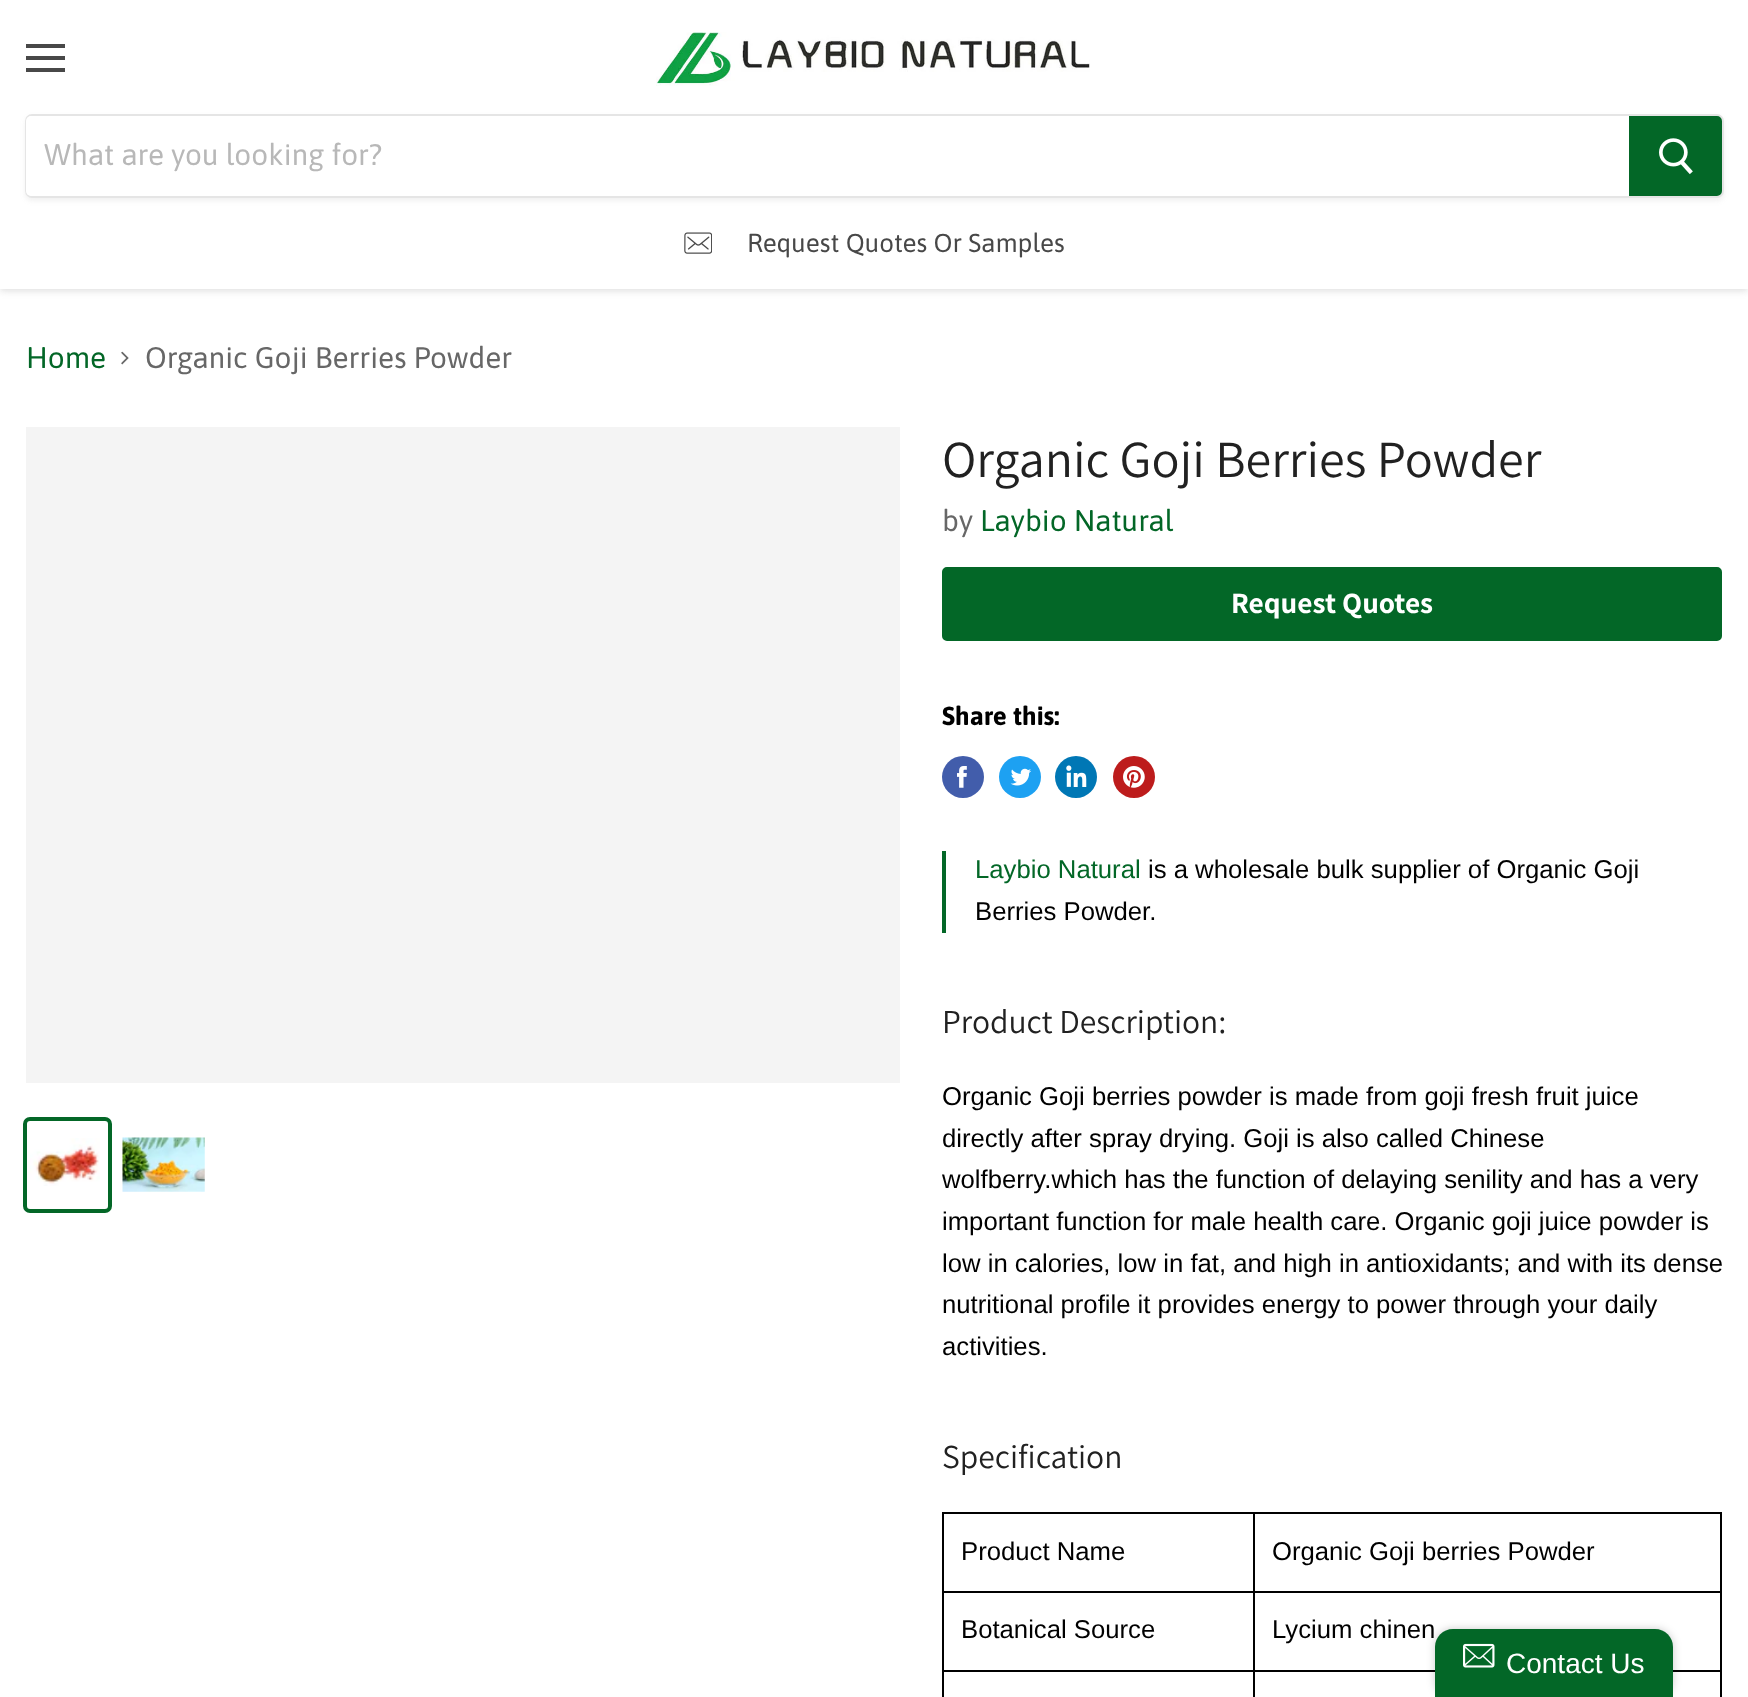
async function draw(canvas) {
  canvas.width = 1748
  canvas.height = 1697
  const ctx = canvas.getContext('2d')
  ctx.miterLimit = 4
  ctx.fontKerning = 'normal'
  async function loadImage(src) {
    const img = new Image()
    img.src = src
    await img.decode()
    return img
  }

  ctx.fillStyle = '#fff'
  ctx.fillRect(0, 0, 1748, 1697)
  ctx.fillStyle = '#7f7f7f40'
  ctx.filter = 'blur(3.5px)'
  ctx.beginPath()
  ctx.rect(0, 2, 1748, 289)
  ctx.fill()
  ctx.filter = 'none'
  ctx.fillStyle = '#fff'
  ctx.fillRect(0, 0, 1748, 289)
  ctx.fillStyle = '#484848'
  ctx.fillRect(26, 44, 39, 4)
  ctx.fillRect(26, 56, 39, 4)
  ctx.fillRect(26, 68, 39, 4)
  ctx.drawImage(await loadImage('image0.png'), 656, 32, 434, 54)
  ctx.save()
  ctx.beginPath()
  ctx.moveTo(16, 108)
  ctx.lineTo(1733, 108)
  ctx.lineTo(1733, 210)
  ctx.lineTo(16, 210)
  ctx.closePath()
  ctx.moveTo(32, 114)
  ctx.lineTo(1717, 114)
  ctx.bezierCurveTo(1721, 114, 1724, 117, 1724, 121)
  ctx.lineTo(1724, 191)
  ctx.bezierCurveTo(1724, 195, 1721, 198, 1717, 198)
  ctx.lineTo(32, 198)
  ctx.bezierCurveTo(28, 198, 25, 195, 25, 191)
  ctx.lineTo(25, 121)
  ctx.bezierCurveTo(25, 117, 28, 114, 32, 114)
  ctx.closePath()
  ctx.clip('evenodd')
  ctx.fillStyle = '#7f7f7f1c'
  ctx.filter = 'blur(2.5px)'
  ctx.beginPath()
  ctx.roundRect(25, 117, 1699, 84, 7)
  ctx.fill()
  ctx.filter = 'none'
  ctx.restore()
  ctx.beginPath()
  ctx.roundRect(26, 115, 1697, 82, 6)
  ctx.strokeStyle = '#7f7f7f33'
  ctx.lineWidth = 2
  ctx.stroke()
  ctx.fillStyle = '#fff'
  ctx.beginPath()
  ctx.roundRect(26, 116, 1603, 80, [5, 0, 0, 5])
  ctx.fill()
  ctx.font = '29.75px Asap'
  ctx.fillStyle = '#b8b8b8'
  ctx.fillText('What are you looking for?', 44, 165)
  ctx.fillStyle = '#036727'
  ctx.beginPath()
  ctx.roundRect(1630, 117, 91, 78, [0, 4, 4, 0])
  ctx.fill()
  ctx.strokeStyle = '#036727'
  ctx.stroke()
  ctx.drawImage(await loadImage('image1.png'), 1659, 138, 34, 37)
  ctx.drawImage(await loadImage('image2.png'), 684, 232, 28, 22)
  ctx.font = '26px Asap'
  ctx.fillStyle = '#484848'
  ctx.fillText('Request Quotes Or Samples', 747, 252)
  ctx.font = '29.75px Asap'
  ctx.fillStyle = '#036727'
  ctx.fillText('Home', 26, 368)
  ctx.drawImage(await loadImage('image3.png'), 121, 351, 8, 14)
  ctx.fillStyle = '#676767'
  ctx.fillText('Organic Goji Berries Powder', 145, 368)
  ctx.fillStyle = '#f4f4f4'
  ctx.fillRect(26, 427, 874, 656)
  ctx.beginPath()
  ctx.roundRect(25, 1119, 85, 92, 5)
  ctx.lineWidth = 4
  ctx.stroke()
  ctx.drawImage(await loadImage('image4.png'), 30, 1138, 70, 48)
  ctx.drawImage(await loadImage('image5.png'), 122, 1137, 83, 55)
  ctx.font = '52px Assistant'
  ctx.fillStyle = '#212121'
  ctx.fillText('Organic Goji Berries Powder', 942, 477)
  ctx.font = '29.75px Asap'
  ctx.fillStyle = '#676767'
  ctx.fillText('by', 942, 531)
  ctx.fillStyle = '#036727'
  ctx.fillText('Laybio Natural', 980, 531)
  ctx.beginPath()
  ctx.roundRect(943, 568, 778, 72, 4)
  ctx.fill()
  ctx.lineWidth = 2
  ctx.stroke()
  ctx.font = 'bold 29.5px Assistant'
  ctx.fillStyle = '#fff'
  ctx.fillText('Request Quotes', 1231, 613)
  ctx.font = 'bold 26px Asap'
  ctx.fillStyle = '#000'
  ctx.fillText('Share this:', 942, 725)
  ctx.fillStyle = '#425dab'
  ctx.beginPath()
  ctx.arc(963, 777, 21, 0, 2 * Math.PI)
  ctx.fill()
  ctx.drawImage(await loadImage('image6.png'), 957, 766, 10, 22)
  ctx.fillStyle = '#1da1f2'
  ctx.beginPath()
  ctx.arc(1020, 777, 21, 0, 2 * Math.PI)
  ctx.fill()
  ctx.drawImage(await loadImage('image7.png'), 1010, 768, 22, 18)
  ctx.fillStyle = '#0077b5'
  ctx.beginPath()
  ctx.arc(1076, 777, 21, 0, 2 * Math.PI)
  ctx.fill()
  ctx.drawImage(await loadImage('image8.png'), 1066, 765, 21, 22)
  ctx.fillStyle = '#bd1c1c'
  ctx.beginPath()
  ctx.arc(1134, 777, 21, 0, 2 * Math.PI)
  ctx.fill()
  ctx.drawImage(await loadImage('image9.png'), 1123, 766, 22, 22)
  ctx.fillStyle = '#036727'
  ctx.fillRect(942, 851, 4, 82)
  ctx.font = '25.7px Liberation Sans'
  ctx.fillText('Laybio Natural', 975, 878)
  ctx.fillStyle = '#000'
  ctx.fillText('is a wholesale bulk supplier of Organic Goji', 1148, 878)
  ctx.fillText('Berries Powder.', 975, 920)
  ctx.font = '33.5px Assistant'
  ctx.fillStyle = '#212121'
  ctx.fillText('Product Description:', 942, 1033)
  ctx.font = '25.7px Liberation Sans'
  ctx.fillStyle = '#000'
  ctx.fillText('Organic Goji berries powder is made from goji fresh fruit juice', 942, 1105)
  ctx.fillText('directly after spray drying. Goji is also called Chinese', 942, 1147)
  ctx.fillText('wolfberry.which has the function of delaying senility and has a very', 942, 1188)
  ctx.fillText('important function for male health care. Organic goji juice powder is', 942, 1230)
  ctx.fillText('low in calories, low in fat, and high in antioxidants; and with its dense', 942, 1272)
  ctx.fillText('nutritional profile it provides energy to power through your daily', 942, 1313)
  ctx.fillText('activities.', 942, 1355)
  ctx.font = '33.5px Assistant'
  ctx.fillStyle = '#212121'
  ctx.fillText('Specification', 942, 1468)
  ctx.fillStyle = '#000'
  ctx.fillRect(942, 1512, 780, 2)
  ctx.fillRect(1720, 1512, 2, 185)
  ctx.fillRect(942, 1512, 2, 185)
  ctx.font = '25.7px Liberation Sans'
  ctx.fillText('Product Name', 961, 1560)
  ctx.fillRect(1253, 1591, 469, 2)
  ctx.fillRect(1253, 1670, 469, 2)
  ctx.fillRect(1253, 1670, 2, 27)
  ctx.fillRect(942, 1670, 313, 2)
  ctx.fillRect(1253, 1591, 2, 80)
  ctx.fillRect(942, 1591, 313, 2)
  ctx.fillRect(1253, 1512, 2, 81)
  ctx.fillText('Organic Goji berries Powder', 1272, 1560)
  ctx.fillText('Botanical Source', 961, 1638)
  ctx.fillText('Lycium chinen', 1272, 1638)
  ctx.fillStyle = '#00000033'
  ctx.filter = 'blur(4.5px)'
  ctx.beginPath()
  ctx.roundRect(1435, 1629, 238, 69, 18)
  ctx.fill()
  ctx.filter = 'none'
  ctx.fillStyle = '#036727'
  ctx.beginPath()
  ctx.moveTo(1453, 1629)
  ctx.lineTo(1655, 1629)
  ctx.bezierCurveTo(1665, 1629, 1673, 1637, 1673, 1647)
  ctx.lineTo(1673, 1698)
  ctx.lineTo(1435, 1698)
  ctx.lineTo(1435, 1647)
  ctx.bezierCurveTo(1435, 1637, 1443, 1629, 1453, 1629)
  ctx.closePath()
  ctx.fill()
  ctx.drawImage(await loadImage('image10.png'), 1463, 1643, 32, 25)
  ctx.font = '28px Liberation Sans'
  ctx.fillStyle = '#fff'
  ctx.fillText('Contact Us', 1506, 1673)
}

draw(document.querySelector('canvas'))
